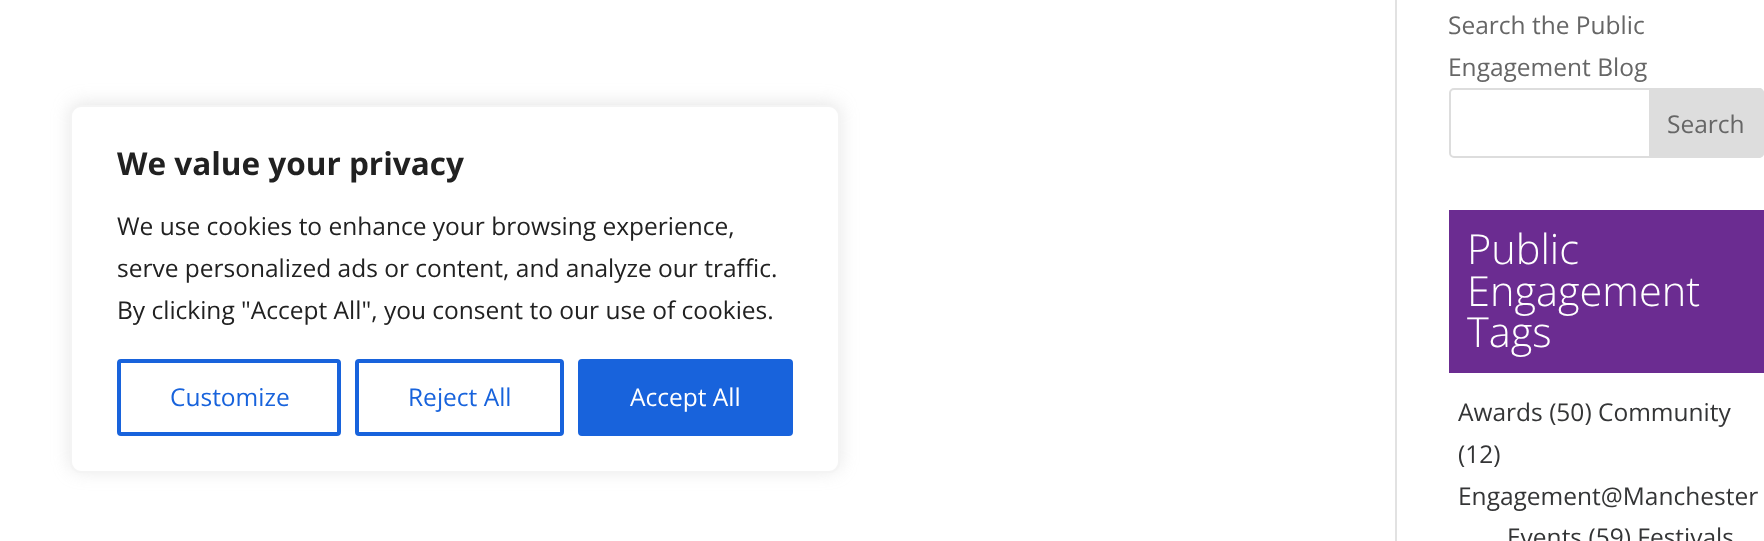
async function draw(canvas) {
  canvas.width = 1764
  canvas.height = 541
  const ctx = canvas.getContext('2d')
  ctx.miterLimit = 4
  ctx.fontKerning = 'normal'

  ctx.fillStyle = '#fff'
  ctx.fillRect(0, 0, 1764, 541)
  ctx.fillStyle = '#acabab4d'
  ctx.filter = 'blur(9px)'
  ctx.beginPath()
  ctx.roundRect(70, 103, 770, 368, 11)
  ctx.fill()
  ctx.filter = 'none'
  ctx.fillStyle = '#fff'
  ctx.beginPath()
  ctx.roundRect(71, 106, 768, 366, 10)
  ctx.fill()
  ctx.strokeStyle = '#f4f4f4'
  ctx.lineWidth = 2
  ctx.stroke()
  ctx.font = 'bold 31.5px Open Sans'
  ctx.fillStyle = '#212121'
  ctx.fillText('We value your privacy', 117, 175)
  ctx.font = '24.5px Open Sans'
  ctx.fillText('We use cookies to enhance your browsing experience,', 117, 235)
  ctx.fillText('serve personalized ads or content, and analyze our traffic.', 117, 277)
  ctx.fillText('By clicking "Accept All", you consent to our use of cookies.', 117, 319)
  ctx.beginPath()
  ctx.roundRect(119, 361, 220, 73, 2)
  ctx.strokeStyle = '#1863dc'
  ctx.lineWidth = 4
  ctx.stroke()
  ctx.fillStyle = '#1863dc'
  ctx.fillText('Customize', 170, 406)
  ctx.beginPath()
  ctx.roundRect(357, 361, 205, 73, 2)
  ctx.stroke()
  ctx.fillText('Reject All', 408, 406)
  ctx.beginPath()
  ctx.roundRect(580, 361, 211, 73, 2)
  ctx.fill()
  ctx.stroke()
  ctx.fillStyle = '#fff'
  ctx.fillText('Accept All', 630, 406)
  ctx.fillStyle = '#e2e2e2'
  ctx.fillRect(1395, 0, 2, 541)
  ctx.fillStyle = '#666'
  ctx.fillText('Search the Public', 1448, 34)
  ctx.fillText('Engagement Blog', 1448, 76)
  ctx.beginPath()
  ctx.roundRect(1450, 89, 313, 68, 4)
  ctx.strokeStyle = '#ddd'
  ctx.lineWidth = 2
  ctx.stroke()
  ctx.fillStyle = '#ddd'
  ctx.beginPath()
  ctx.roundRect(1650, 89, 113, 68, [0, 4, 4, 0])
  ctx.fill()
  ctx.stroke()
  ctx.fillStyle = '#666'
  ctx.fillText('Search', 1667, 133)
  ctx.fillStyle = '#6b2c91'
  ctx.fillRect(1449, 210, 315, 163)
  ctx.font = '300 41.5px Open Sans'
  ctx.fillStyle = '#fff'
  ctx.fillText('Public', 1467, 264)
  ctx.fillText('Engagement', 1467, 306)
  ctx.fillText('Tags', 1467, 347)
  ctx.font = '24.5px Open Sans'
  ctx.fillStyle = '#343536'
  ctx.fillText('Awards (50) Community', 1458, 421)
  ctx.fillText('(12)', 1458, 463)
  ctx.fillText('Engagement@Manchester', 1458, 505)
  ctx.fillText('Events (59) Festivals', 1507, 546)
}

draw(document.querySelector('canvas'))
